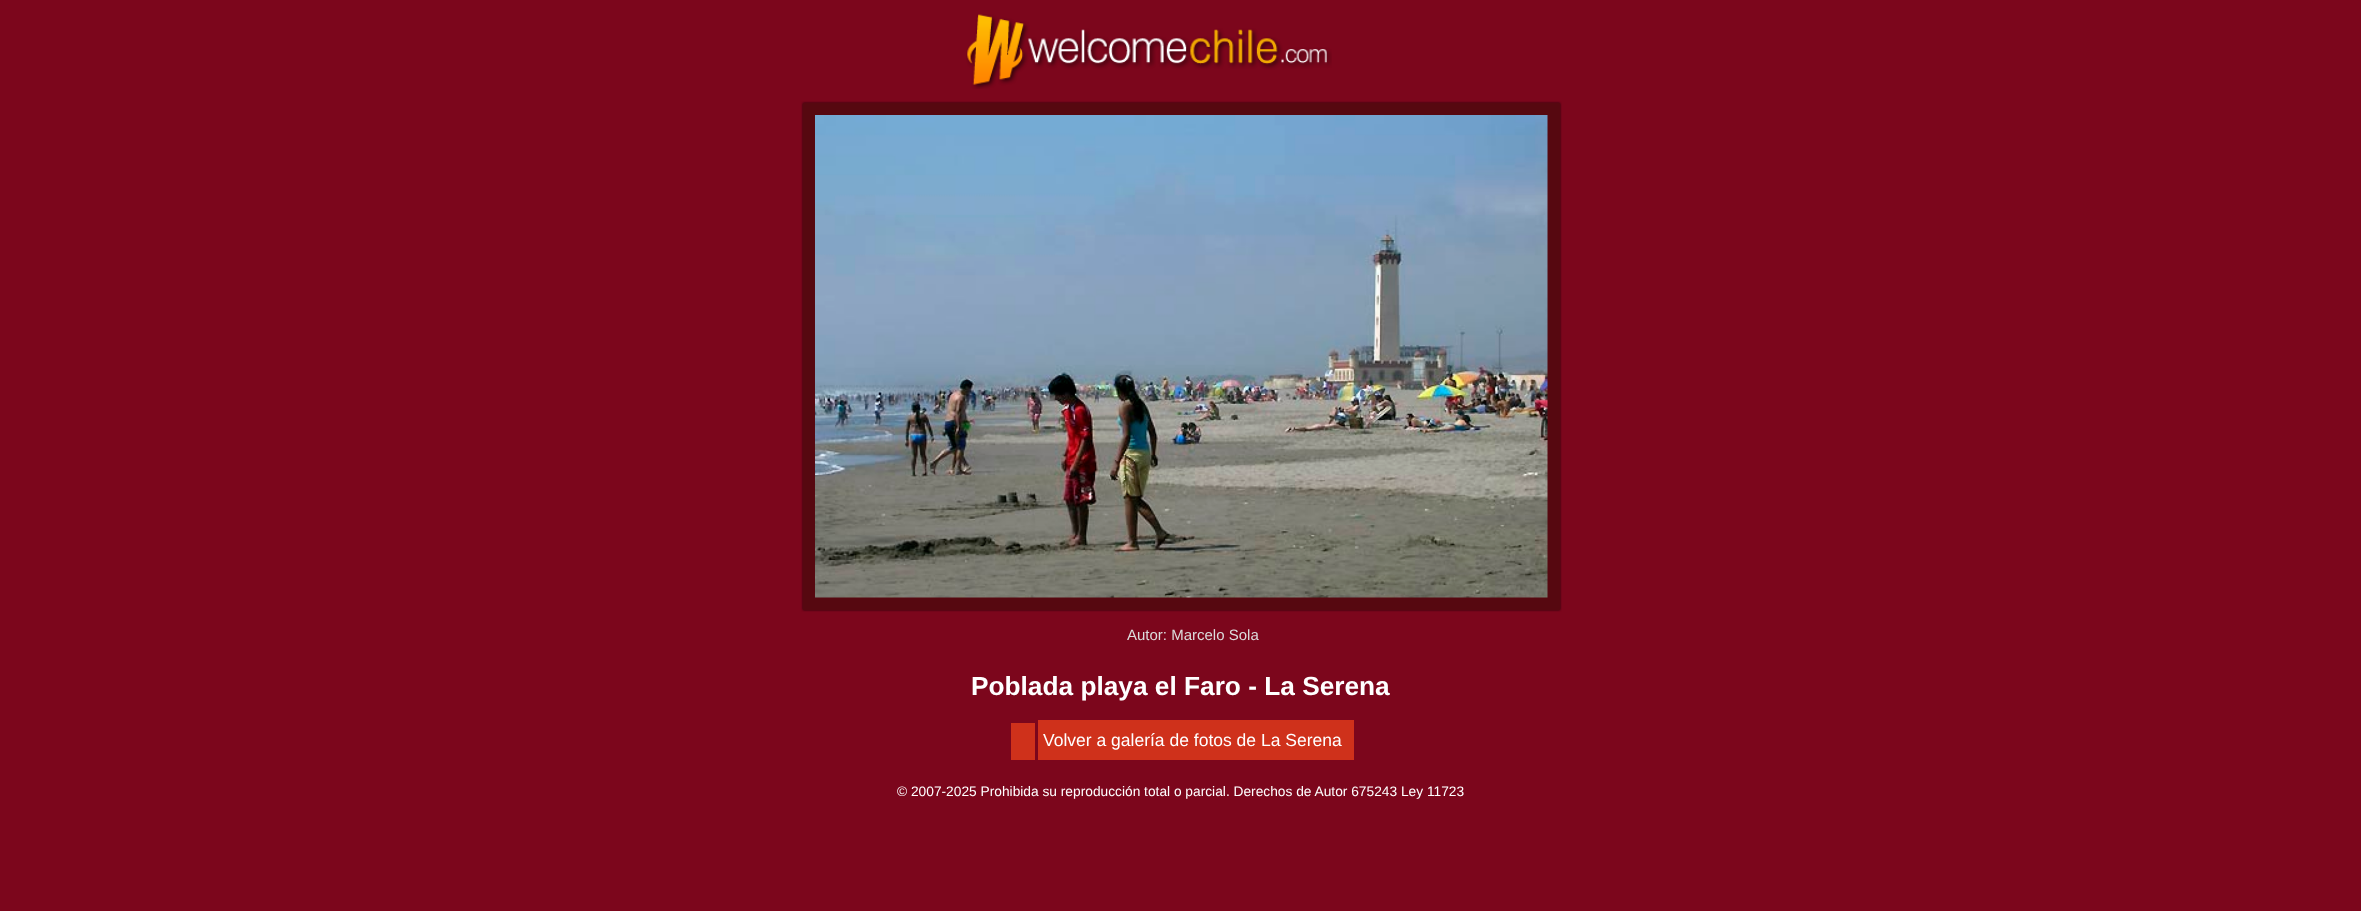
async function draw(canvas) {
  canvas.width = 2361
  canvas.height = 911
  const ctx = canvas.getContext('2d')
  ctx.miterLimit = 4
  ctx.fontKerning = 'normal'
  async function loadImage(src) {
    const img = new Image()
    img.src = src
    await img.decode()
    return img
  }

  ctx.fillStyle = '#7c061c'
  ctx.fillRect(0, 0, 2361, 911)
  ctx.drawImage(await loadImage('image0.png'), 966, 14, 366, 75)
  ctx.fillStyle = '#000000cc'
  ctx.filter = 'blur(1px)'
  ctx.beginPath()
  ctx.rect(803, 103, 757, 507)
  ctx.fill()
  ctx.filter = 'none'
  ctx.strokeStyle = '#560810'
  ctx.lineWidth = 13
  ctx.strokeRect(809.5, 109.5, 744, 494)
  ctx.drawImage(await loadImage('image1.png'), 815, 115, 733, 483)
  ctx.font = '15px Liberation Sans'
  ctx.fillStyle = '#dcdcdc'
  ctx.fillText('Autor: Marcelo Sola', 1127, 640)
  ctx.font = 'bold 26.25px Liberation Sans'
  ctx.fillStyle = '#fff'
  ctx.fillText('Poblada playa el Faro - La Serena', 971, 695)
  ctx.fillStyle = '#cf311b'
  ctx.fillRect(1038, 720, 316, 40)
  ctx.font = '17.5px Liberation Sans'
  ctx.fillStyle = '#fff'
  ctx.fillText('Volver a galería de fotos de La Serena', 1043, 746)
  ctx.fillStyle = '#cf311b'
  ctx.fillRect(1011, 723, 24, 37)
  ctx.font = '13.75px Liberation Sans'
  ctx.fillStyle = '#fff'
  ctx.fillText('© 2007-2025 Prohibida su reproducción total o parcial. Derechos de Autor 675243 Ley 11723', 897, 796)
}

draw(document.querySelector('canvas'))
